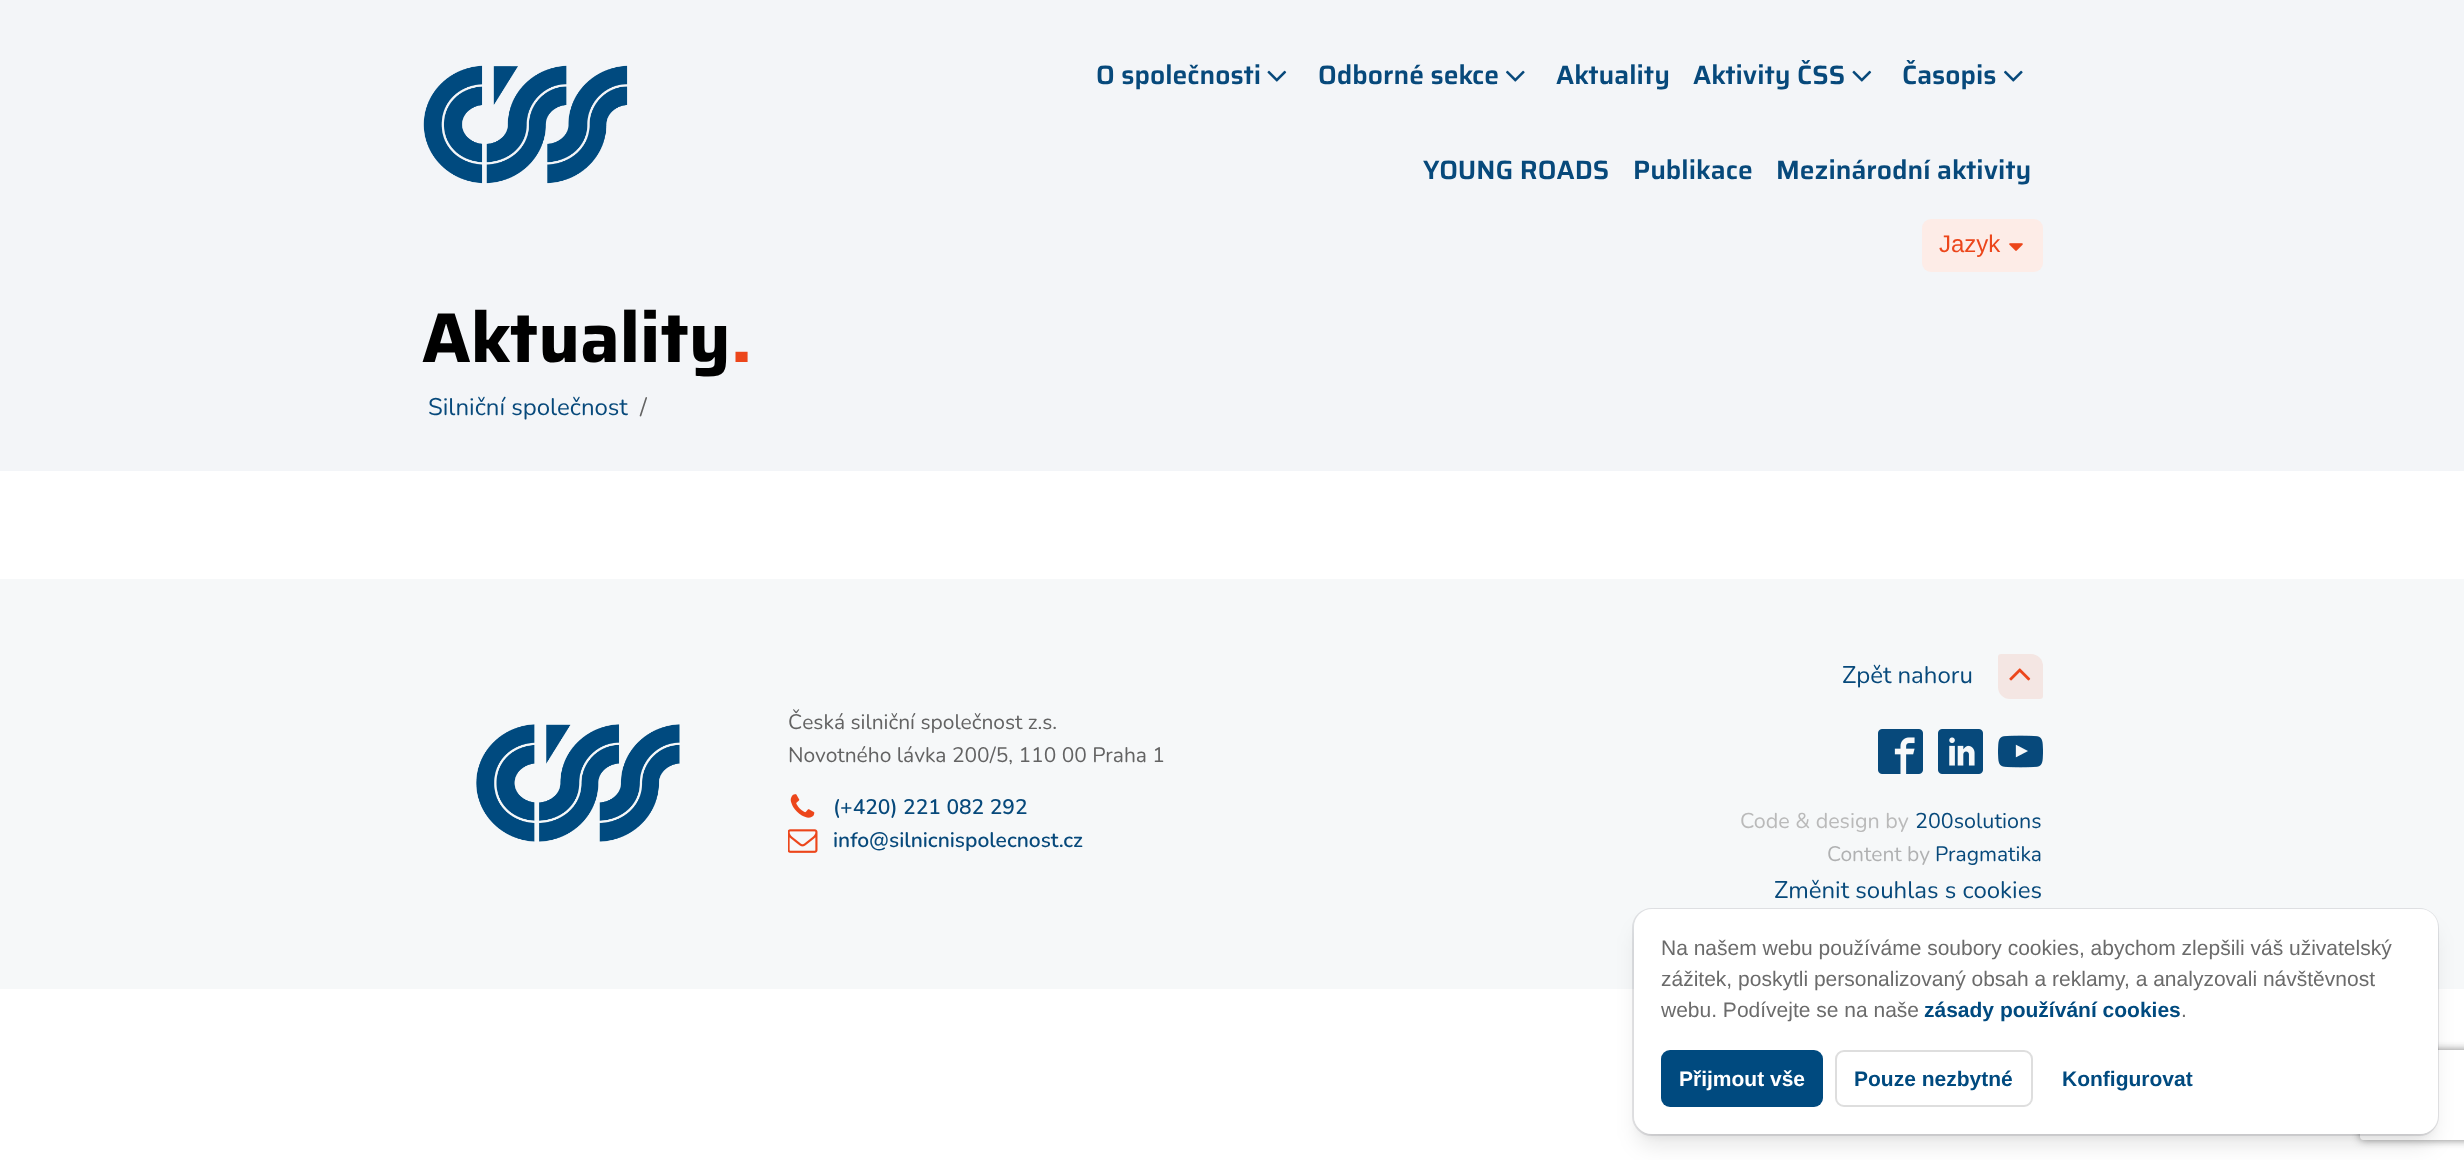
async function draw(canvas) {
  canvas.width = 2464
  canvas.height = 1160
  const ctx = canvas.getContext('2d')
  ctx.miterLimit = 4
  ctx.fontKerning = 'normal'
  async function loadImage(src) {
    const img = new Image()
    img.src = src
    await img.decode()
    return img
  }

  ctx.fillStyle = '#fff'
  ctx.fillRect(0, 0, 2464, 1160)
  ctx.fillStyle = '#f3f5f8'
  ctx.fillRect(0, 0, 2464, 471)
  ctx.drawImage(await loadImage('image0.png'), 423, 65, 205, 119)
  ctx.font = '600 26.5px Saira'
  ctx.fillStyle = '#07497b'
  ctx.fillText('O společnosti', 1096, 84)
  ctx.drawImage(await loadImage('image1.png'), 1267, 70, 20, 12)
  ctx.fillText('Odborné sekce', 1318, 84)
  ctx.drawImage(await loadImage('image2.png'), 1506, 70, 19, 12)
  ctx.fillText('Aktuality', 1556, 84)
  ctx.fillText('Aktivity ČSS', 1693, 84)
  ctx.drawImage(await loadImage('image1.png'), 1852, 70, 20, 12)
  ctx.fillText('Časopis', 1902, 84)
  ctx.drawImage(await loadImage('image2.png'), 2004, 70, 19, 12)
  ctx.fillText('YOUNG ROADS', 1423, 179)
  ctx.fillText('Publikace', 1633, 179)
  ctx.fillText('Mezinárodní aktivity', 1776, 179)
  ctx.fillStyle = '#fdece7'
  ctx.beginPath()
  ctx.roundRect(1922, 219, 121, 53, 9)
  ctx.fill()
  ctx.font = '24px Liberation Sans'
  ctx.fillStyle = '#ec461b'
  ctx.fillText('Jazyk', 1939, 252)
  ctx.drawImage(await loadImage('image3.png'), 2009, 243, 14, 8)
  ctx.font = 'bold 70.5px Saira'
  ctx.fillStyle = '#000'
  ctx.fillText('Aktuality', 422, 362)
  ctx.fillStyle = '#ec461b'
  ctx.fillText('.', 731, 362)
  ctx.font = '24px Nunito'
  ctx.fillStyle = '#07497b'
  ctx.fillText('Silniční společnost', 428, 415)
  ctx.fillStyle = '#636363'
  ctx.fillText('/', 640, 415)
  ctx.fillStyle = '#f6f8f9'
  ctx.fillRect(0, 579, 2464, 410)
  ctx.fillStyle = '#07497b'
  ctx.fillText('Zpět nahoru', 1842, 683)
  ctx.fillStyle = '#f4e6e3'
  ctx.beginPath()
  ctx.roundRect(1998, 654, 45, 45, [3, 12, 3, 12])
  ctx.fill()
  ctx.drawImage(await loadImage('image4.png'), 2009, 668, 22, 13)
  ctx.drawImage(await loadImage('image5.png'), 476, 724, 204, 118)
  ctx.font = '21px Nunito'
  ctx.fillStyle = '#636363'
  ctx.fillText('Česká silniční společnost z.s.', 788, 729)
  ctx.fillText('Novotného lávka 200/5, 110 00 Praha 1', 788, 762)
  ctx.drawImage(await loadImage('image6.png'), 790, 794, 25, 24)
  ctx.font = '600 21px Nunito'
  ctx.fillStyle = '#07497b'
  ctx.fillText('(+420) 221 082 292', 833, 814)
  ctx.drawImage(await loadImage('image7.png'), 788, 829, 30, 24)
  ctx.fillText('info@silnicnispolecnost.cz', 833, 847)
  ctx.drawImage(await loadImage('image8.png'), 1878, 729, 45, 45)
  ctx.drawImage(await loadImage('image9.png'), 1938, 729, 45, 45)
  ctx.drawImage(await loadImage('image10.png'), 1998, 735, 45, 33)
  ctx.font = '21.5px Nunito'
  ctx.fillStyle = '#bababa'
  ctx.fillText('Code & design by', 1740, 828)
  ctx.fillStyle = '#07497b'
  ctx.fillText('200solutions', 1915, 828)
  ctx.font = '21px Nunito'
  ctx.fillStyle = '#b0b1b2'
  ctx.fillText('Content by', 1827, 861)
  ctx.fillStyle = '#07497b'
  ctx.fillText('Pragmatika', 1935, 861)
  ctx.font = '24px Nunito'
  ctx.fillText('Změnit souhlas s cookies', 1774, 898)
  ctx.fillStyle = '#0000001a'
  ctx.filter = 'blur(4.5px)'
  ctx.beginPath()
  ctx.roundRect(1640, 921, 792, 213, 12)
  ctx.fill()
  ctx.filter = 'none'
  ctx.filter = 'blur(11px)'
  ctx.beginPath()
  ctx.roundRect(1638, 929, 795, 216, 14)
  ctx.fill()
  ctx.filter = 'none'
  ctx.save()
  ctx.beginPath()
  ctx.moveTo(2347, 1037)
  ctx.lineTo(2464, 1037)
  ctx.lineTo(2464, 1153)
  ctx.lineTo(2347, 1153)
  ctx.closePath()
  ctx.moveTo(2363, 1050)
  ctx.lineTo(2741, 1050)
  ctx.bezierCurveTo(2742.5, 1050, 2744, 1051.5, 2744, 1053)
  ctx.lineTo(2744, 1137)
  ctx.bezierCurveTo(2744, 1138.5, 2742.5, 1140, 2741, 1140)
  ctx.lineTo(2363, 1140)
  ctx.bezierCurveTo(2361.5, 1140, 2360, 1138.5, 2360, 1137)
  ctx.lineTo(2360, 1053)
  ctx.bezierCurveTo(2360, 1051.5, 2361.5, 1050, 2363, 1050)
  ctx.closePath()
  ctx.clip('evenodd')
  ctx.fillStyle = '#808080'
  ctx.filter = 'blur(4px)'
  ctx.beginPath()
  ctx.roundRect(2360, 1050, 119, 90, 3)
  ctx.fill()
  ctx.filter = 'none'
  ctx.restore()
  ctx.beginPath()
  ctx.roundRect(1633, 909, 805, 226, 19)
  ctx.strokeStyle = '#1118271a'
  ctx.lineWidth = 2
  ctx.stroke()
  ctx.fillStyle = '#fff'
  ctx.beginPath()
  ctx.roundRect(1634, 909, 804, 225, 18)
  ctx.fill()
  ctx.font = '21px Liberation Sans'
  ctx.fillStyle = '#6b6b6b'
  ctx.fillText('Na našem webu používáme soubory cookies, abychom zlepšili váš uživatelský', 1661, 955)
  ctx.fillText('zážitek, poskytli personalizovaný obsah a reklamy, a analyzovali návštěvnost', 1661, 986)
  ctx.fillText('webu. Podívejte se na naše', 1661, 1017)
  ctx.font = 'bold 21px Liberation Sans'
  ctx.fillStyle = '#004a7f'
  ctx.fillText('zásady používání cookies', 1924, 1017)
  ctx.font = '21px Liberation Sans'
  ctx.fillStyle = '#6b6b6b'
  ctx.fillText('.', 2181, 1017)
  ctx.fillStyle = '#004a7f'
  ctx.beginPath()
  ctx.roundRect(1661, 1050, 162, 57, 9)
  ctx.fill()
  ctx.font = 'bold 21px Liberation Sans'
  ctx.fillStyle = '#fff'
  ctx.fillText('Přijmout vše', 1679, 1086)
  ctx.beginPath()
  ctx.roundRect(1836, 1051, 196, 55, 8)
  ctx.strokeStyle = '#dedede'
  ctx.stroke()
  ctx.fillStyle = '#004a7f'
  ctx.fillText('Pouze nezbytné', 1854, 1086)
  ctx.fillText('Konfigurovat', 2062, 1086)
}

draw(document.querySelector('canvas'))
